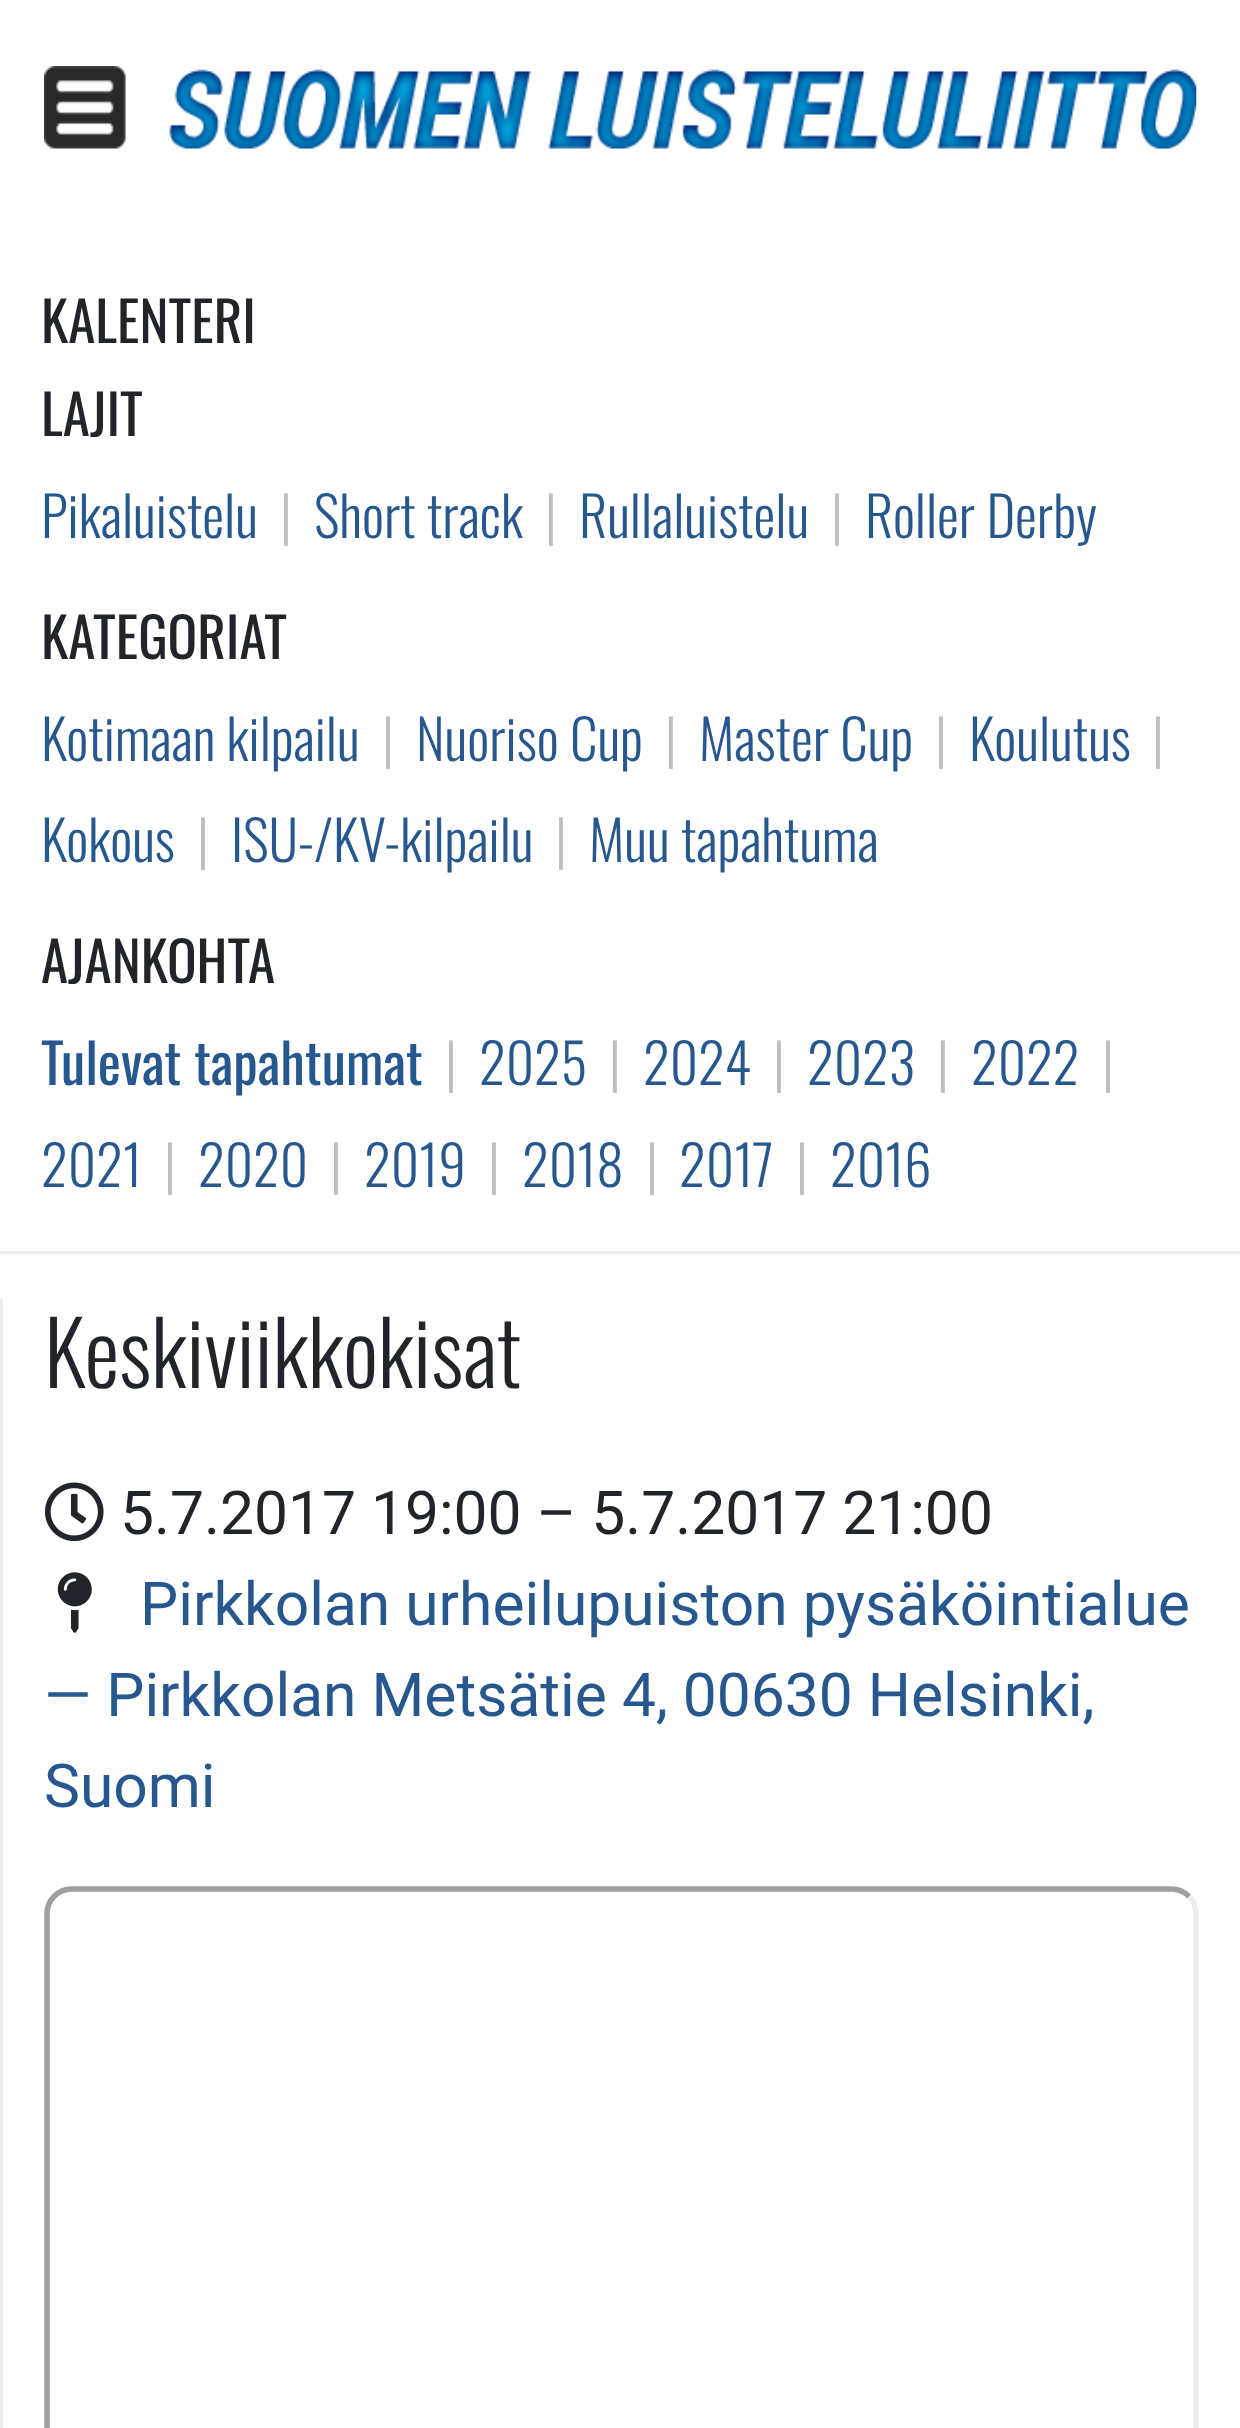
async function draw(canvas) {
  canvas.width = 1240
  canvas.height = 2428
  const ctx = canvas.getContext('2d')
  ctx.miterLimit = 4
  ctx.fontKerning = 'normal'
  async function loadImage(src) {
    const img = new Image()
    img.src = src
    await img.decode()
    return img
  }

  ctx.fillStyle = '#fff'
  ctx.fillRect(0, 0, 1240, 2428)
  ctx.drawImage(await loadImage('image0.png'), 44, 66, 1153, 83)
  ctx.fillStyle = '#eee'
  ctx.fillRect(0, 1251, 1240, 3)
  ctx.font = '55px Oswald'
  ctx.fillStyle = '#212529'
  ctx.fillText('KALENTERI', 41, 343)
  ctx.fillText('LAJIT', 41, 436)
  ctx.font = '300 55px Oswald'
  ctx.fillStyle = '#27578f'
  ctx.fillText('Pikaluistelu', 41, 538)
  ctx.fillStyle = '#bcbebf'
  ctx.fillText('|', 280, 538)
  ctx.fillStyle = '#27578f'
  ctx.fillText('Short track', 314, 538)
  ctx.fillStyle = '#bcbebf'
  ctx.fillText('|', 545, 538)
  ctx.fillStyle = '#27578f'
  ctx.fillText('Rullaluistelu', 579, 538)
  ctx.fillStyle = '#bcbebf'
  ctx.fillText('|', 831, 538)
  ctx.fillStyle = '#27578f'
  ctx.fillText('Roller Derby', 865, 538)
  ctx.font = '55px Oswald'
  ctx.fillStyle = '#212529'
  ctx.fillText('KATEGORIAT', 41, 659)
  ctx.font = '300 55px Oswald'
  ctx.fillStyle = '#27578f'
  ctx.fillText('Kotimaan kilpailu', 41, 761)
  ctx.fillStyle = '#bcbebf'
  ctx.fillText('|', 382, 761)
  ctx.fillStyle = '#27578f'
  ctx.fillText('Nuoriso Cup', 416, 761)
  ctx.fillStyle = '#bcbebf'
  ctx.fillText('|', 665, 761)
  ctx.fillStyle = '#27578f'
  ctx.fillText('Master Cup', 699, 761)
  ctx.fillStyle = '#bcbebf'
  ctx.fillText('|', 935, 761)
  ctx.fillStyle = '#27578f'
  ctx.fillText('Koulutus', 969, 761)
  ctx.fillStyle = '#bcbebf'
  ctx.fillText('|', 1152, 761)
  ctx.fillStyle = '#27578f'
  ctx.fillText('Kokous', 41, 862)
  ctx.fillStyle = '#bcbebf'
  ctx.fillText('|', 197, 862)
  ctx.fillStyle = '#27578f'
  ctx.fillText('ISU-/KV-kilpailu', 231, 862)
  ctx.fillStyle = '#bcbebf'
  ctx.fillText('|', 555, 862)
  ctx.fillStyle = '#27578f'
  ctx.fillText('Muu tapahtuma', 589, 862)
  ctx.font = '55px Oswald'
  ctx.fillStyle = '#212529'
  ctx.fillText('AJANKOHTA', 41, 983)
  ctx.fillStyle = '#27578f'
  ctx.fillText('Tulevat tapahtumat', 41, 1085)
  ctx.font = '300 55px Oswald'
  ctx.fillStyle = '#bcbebf'
  ctx.fillText('|', 445, 1085)
  ctx.fillStyle = '#27578f'
  ctx.fillText('2025', 479, 1085)
  ctx.fillStyle = '#bcbebf'
  ctx.fillText('|', 609, 1085)
  ctx.fillStyle = '#27578f'
  ctx.fillText('2024', 643, 1085)
  ctx.fillStyle = '#bcbebf'
  ctx.fillText('|', 773, 1085)
  ctx.fillStyle = '#27578f'
  ctx.fillText('2023', 807, 1085)
  ctx.fillStyle = '#bcbebf'
  ctx.fillText('|', 937, 1085)
  ctx.fillStyle = '#27578f'
  ctx.fillText('2022', 971, 1085)
  ctx.fillStyle = '#bcbebf'
  ctx.fillText('|', 1102, 1085)
  ctx.fillStyle = '#27578f'
  ctx.fillText('2021', 41, 1187)
  ctx.fillStyle = '#bcbebf'
  ctx.fillText('|', 164, 1187)
  ctx.fillStyle = '#27578f'
  ctx.fillText('2020', 198, 1187)
  ctx.fillStyle = '#bcbebf'
  ctx.fillText('|', 330, 1187)
  ctx.fillStyle = '#27578f'
  ctx.fillText('2019', 364, 1187)
  ctx.fillStyle = '#bcbebf'
  ctx.fillText('|', 488, 1187)
  ctx.fillStyle = '#27578f'
  ctx.fillText('2018', 522, 1187)
  ctx.fillStyle = '#bcbebf'
  ctx.fillText('|', 646, 1187)
  ctx.fillStyle = '#27578f'
  ctx.fillText('2017', 679, 1187)
  ctx.fillStyle = '#bcbebf'
  ctx.fillText('|', 796, 1187)
  ctx.fillStyle = '#27578f'
  ctx.fillText('2016', 830, 1187)
  ctx.fillStyle = '#eee'
  ctx.fillRect(0, 1298, 3, 1130)
  ctx.font = '300 88px Oswald'
  ctx.fillStyle = '#212529'
  ctx.fillText('Keskiviikkokisat', 44, 1388)
  ctx.drawImage(await loadImage('image1.png'), 44, 1482, 60, 60)
  ctx.font = '60.5px Roboto'
  ctx.fillText('5.7.2017 19:00 – 5.7.2017 21:00', 120, 1534)
  ctx.drawImage(await loadImage('image2.png'), 57, 1572, 35, 61)
  ctx.fillStyle = '#27578f'
  ctx.fillText('Pirkkolan urheilupuiston pysäköintialue', 140, 1625)
  ctx.fillText('— Pirkkolan Metsätie 4, 00630 Helsinki,', 44, 1716)
  ctx.fillText('Suomi', 44, 1807)
  ctx.beginPath()
  ctx.moveTo(1189, 1896.5)
  ctx.bezierCurveTo(1193.5, 1901, 1196, 1907.5, 1196, 1914)
  ctx.lineTo(1196, 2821.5)
  ctx.bezierCurveTo(1196, 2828, 1193.5, 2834.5, 1189, 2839)
  ctx.bezierCurveTo(1184.5, 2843.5, 1178, 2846, 1171.5, 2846)
  ctx.lineTo(71.5, 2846)
  ctx.bezierCurveTo(65, 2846, 58.5, 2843.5, 54, 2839)
  ctx.strokeStyle = '#eee'
  ctx.lineWidth = 5.5
  ctx.stroke()
  ctx.beginPath()
  ctx.moveTo(54, 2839)
  ctx.bezierCurveTo(49.5, 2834.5, 47, 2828, 47, 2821.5)
  ctx.lineTo(47, 1914)
  ctx.bezierCurveTo(47, 1907.5, 49.5, 1901, 54, 1896.5)
  ctx.bezierCurveTo(58.5, 1892, 65, 1889, 71.5, 1889)
  ctx.lineTo(1171.5, 1889)
  ctx.bezierCurveTo(1178, 1889, 1184.5, 1892, 1189, 1896.5)
  ctx.strokeStyle = '#9f9f9f'
  ctx.stroke()
}

draw(document.querySelector('canvas'))
